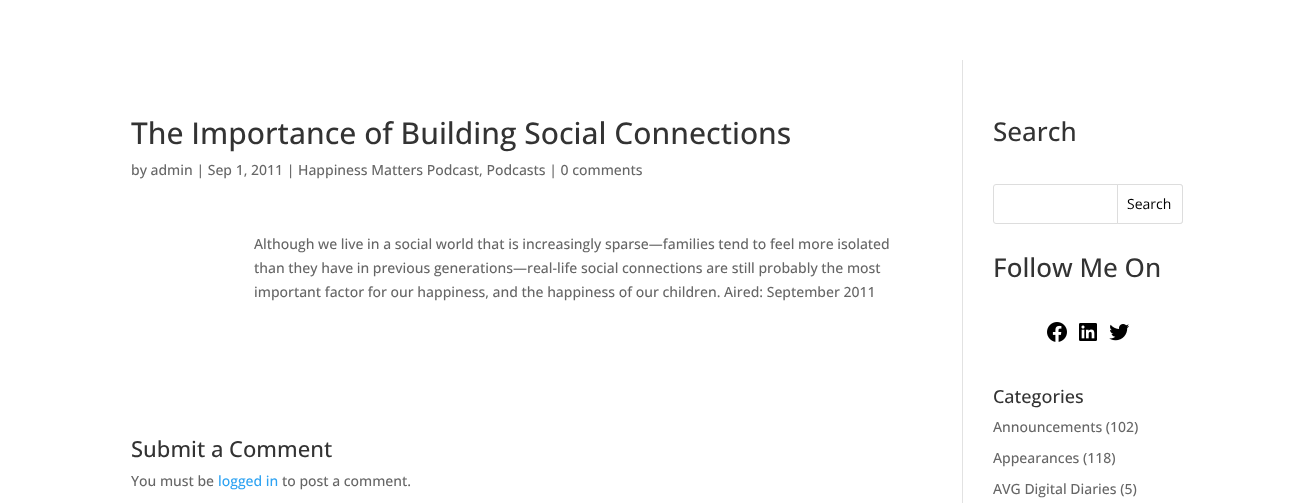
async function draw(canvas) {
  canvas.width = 1314
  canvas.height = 503
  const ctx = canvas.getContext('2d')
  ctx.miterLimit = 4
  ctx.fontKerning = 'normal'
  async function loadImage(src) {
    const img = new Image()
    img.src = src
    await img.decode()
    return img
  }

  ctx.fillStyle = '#fff'
  ctx.fillRect(0, 0, 1314, 503)
  ctx.fillStyle = '#e2e2e2'
  ctx.fillRect(962, 60, 1, 443)
  ctx.font = '500 30px Open Sans'
  ctx.fillStyle = '#333'
  ctx.fillText('The Importance of Building Social Connections', 131, 144)
  ctx.font = '500 14px Open Sans'
  ctx.fillStyle = '#666'
  ctx.fillText('by admin | Sep 1, 2011 | Happiness Matters Podcast, Podcasts | 0 comments', 131, 175)
  ctx.fillText('Although we live in a social world that is increasingly sparse—families tend to feel more isolated', 254, 249)
  ctx.fillText('than they have in previous generations—real-life social connections are still probably the most', 254, 273)
  ctx.fillText('important factor for our happiness, and the happiness of our children. Aired: September 2011', 254, 297)
  ctx.font = '500 22px Open Sans'
  ctx.fillStyle = '#333'
  ctx.fillText('Submit a Comment', 131, 457)
  ctx.font = '500 14px Open Sans'
  ctx.fillStyle = '#666'
  ctx.fillText('You must be', 131, 486)
  ctx.fillStyle = '#2ea3f2'
  ctx.fillText('logged in', 218, 486)
  ctx.fillStyle = '#666'
  ctx.fillText('to post a comment.', 282, 486)
  ctx.font = '500 26px Open Sans'
  ctx.fillStyle = '#333'
  ctx.fillText('Search', 993, 141)
  ctx.beginPath()
  ctx.roundRect(993.5, 184.5, 189, 39, 2.5)
  ctx.strokeStyle = '#ddd'
  ctx.stroke()
  ctx.fillStyle = '#fff'
  ctx.beginPath()
  ctx.roundRect(1117.5, 184.5, 65, 39, [0, 2.5, 2.5, 0])
  ctx.fill()
  ctx.stroke()
  ctx.font = '14px Open Sans'
  ctx.fillStyle = '#000'
  ctx.fillText('Search', 1127, 209)
  ctx.font = '500 26px Open Sans'
  ctx.fillStyle = '#333'
  ctx.fillText('Follow Me On', 993, 277)
  ctx.drawImage(await loadImage('image0.png'), 1047, 322, 20, 20)
  ctx.drawImage(await loadImage('image1.png'), 1079, 323, 18, 18)
  ctx.drawImage(await loadImage('image2.png'), 1109, 324, 20, 17)
  ctx.font = '500 18px Open Sans'
  ctx.fillText('Categories', 993, 403)
  ctx.font = '500 14px Open Sans'
  ctx.fillStyle = '#666'
  ctx.fillText('Announcements (102)', 993, 432)
  ctx.fillText('Appearances (118)', 993, 463)
  ctx.fillText('AVG Digital Diaries (5)', 993, 494)
}

draw(document.querySelector('canvas'))
